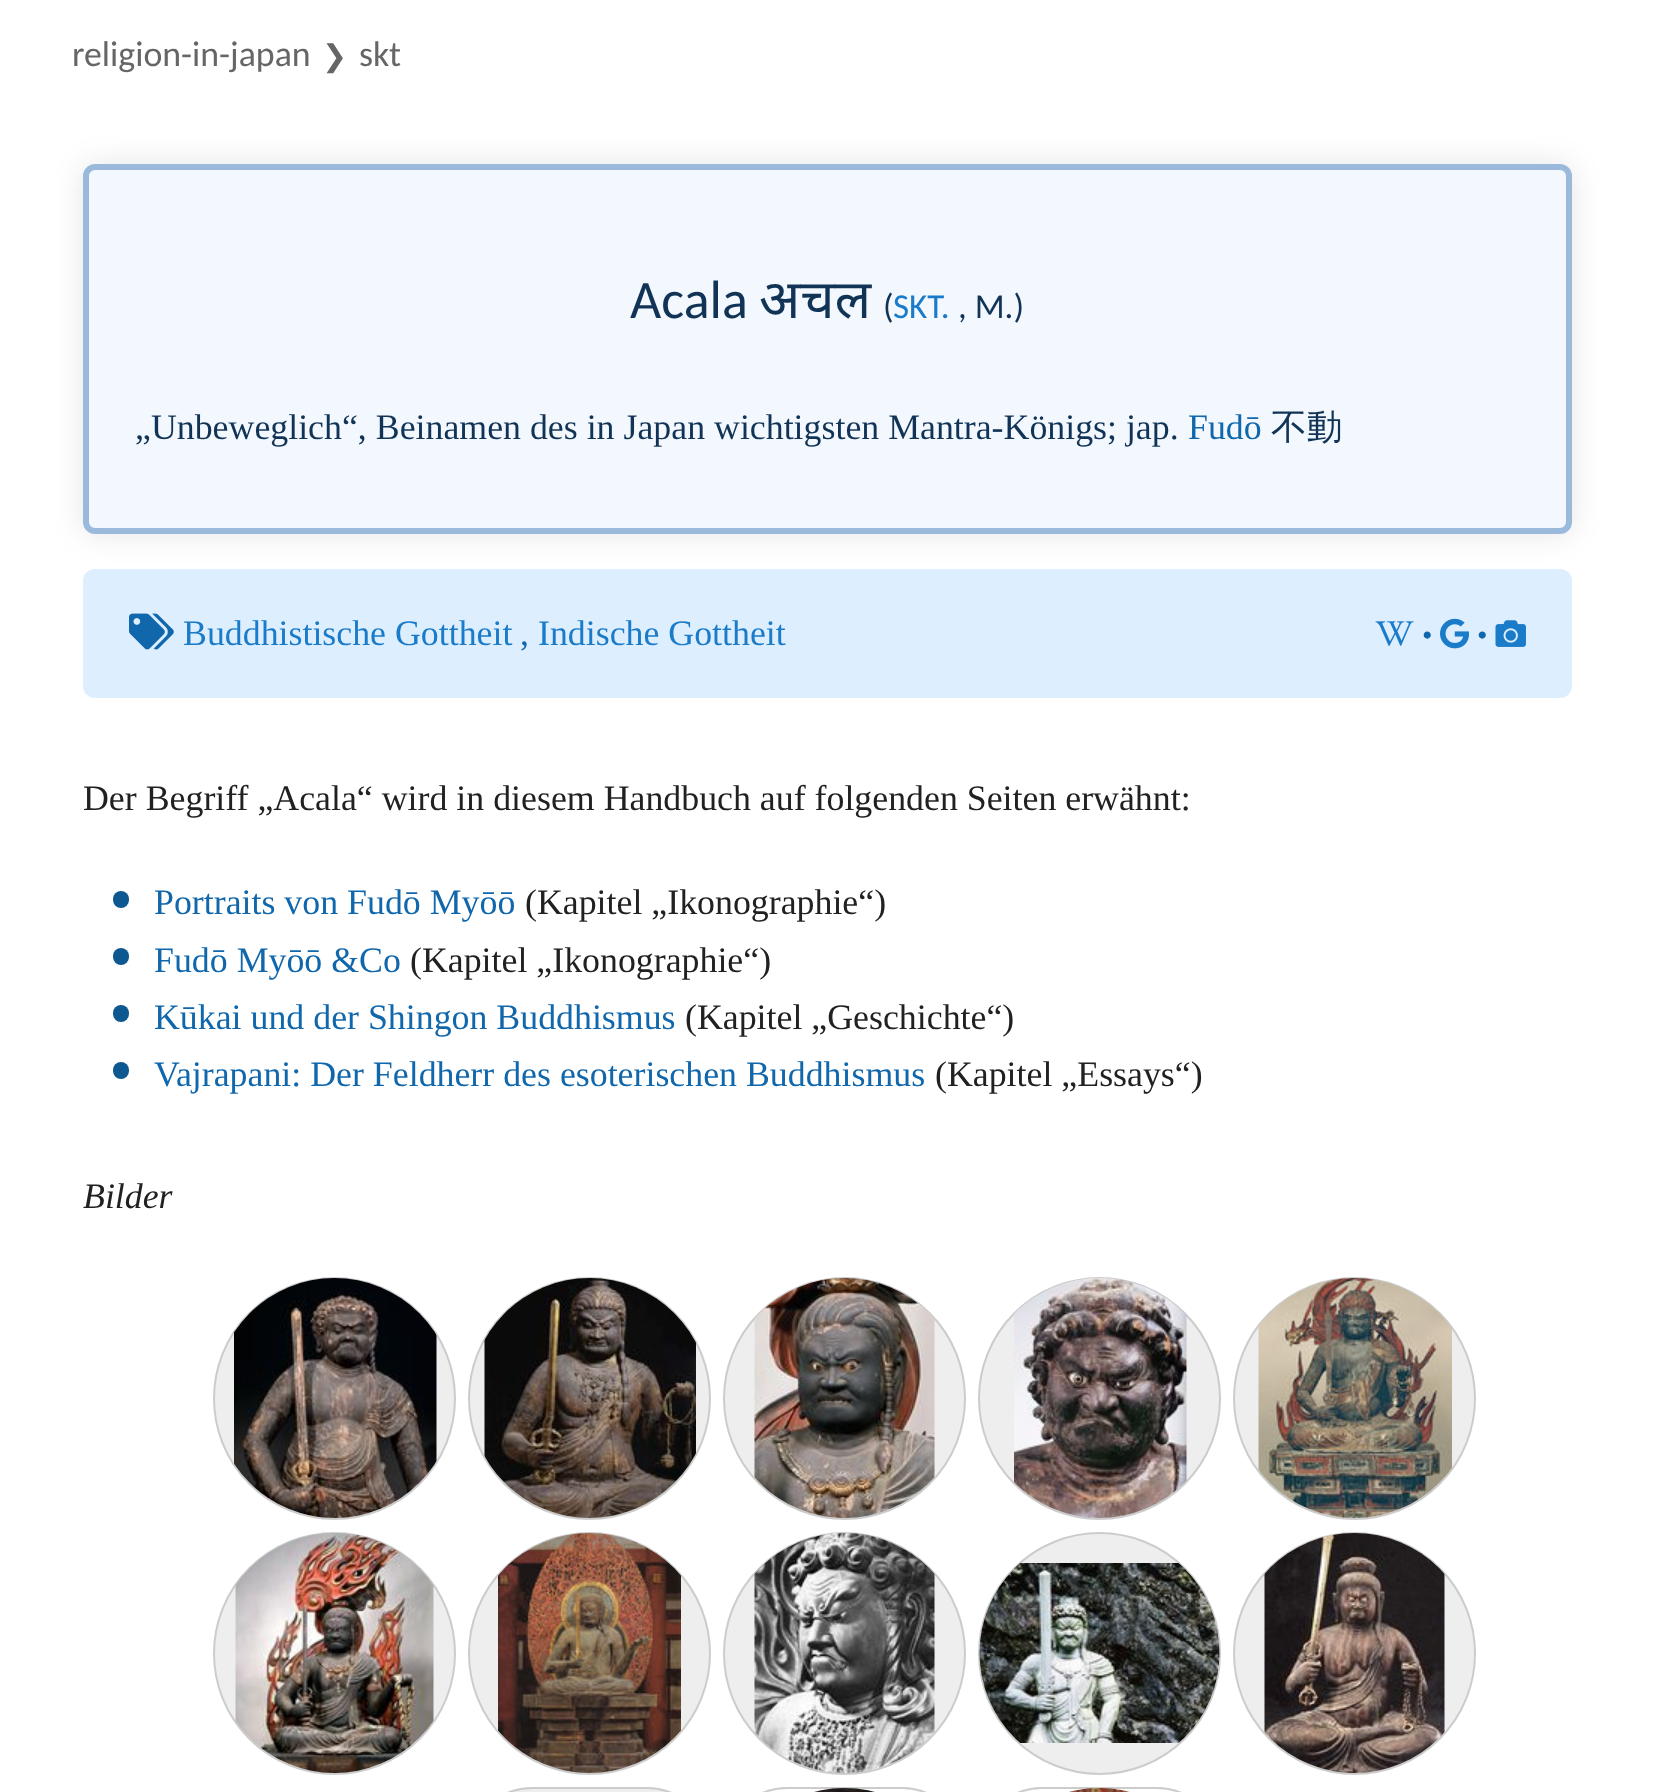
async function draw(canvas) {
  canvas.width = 1654
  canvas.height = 1792
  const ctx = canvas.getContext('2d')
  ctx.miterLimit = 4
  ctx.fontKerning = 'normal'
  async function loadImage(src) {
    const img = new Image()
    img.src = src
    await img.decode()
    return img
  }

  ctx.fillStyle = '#fff'
  ctx.fillRect(0, 0, 1654, 1792)
  ctx.font = '35.85px Carlito'
  ctx.fillStyle = '#666'
  ctx.fillText('religion-in-japan', 72, 66)
  ctx.font = '30px DejaVu Sans'
  ctx.fillText('❯', 322, 66)
  ctx.font = '35.85px Carlito'
  ctx.fillText('skt', 359, 66)
  ctx.fillStyle = '#0000001a'
  ctx.filter = 'blur(15px)'
  ctx.beginPath()
  ctx.roundRect(83, 164, 1489, 370, 12)
  ctx.fill()
  ctx.filter = 'none'
  ctx.fillStyle = '#f3f8ff'
  ctx.beginPath()
  ctx.roundRect(86, 167, 1483, 364, 9)
  ctx.fill()
  ctx.strokeStyle = '#9ab9db'
  ctx.lineWidth = 6
  ctx.stroke()
  ctx.font = '54px Carlito'
  ctx.fillStyle = '#135'
  ctx.fillText('Acala', 630, 318)
  ctx.font = '54px Noto Sans'
  ctx.fillText('अचल', 759, 318)
  ctx.font = '35px Carlito'
  ctx.fillText('(', 883, 318)
  ctx.fillStyle = '#1a7bc9'
  ctx.fillText('SKT.', 893, 318)
  ctx.fillStyle = '#135'
  ctx.fillText(', M.)', 958, 318)
  ctx.font = '35.85px Liberation Serif'
  ctx.fillText('„Unbeweglich“, Beinamen des in Japan wichtigsten Mantra-Königs', 135, 439)
  ctx.fillText('; jap.', 1107, 439)
  ctx.fillStyle = '#1067ac'
  ctx.fillText('Fudō', 1188, 439)
  ctx.font = '500 35.85px WenQuanYi Zen Hei'
  ctx.fillStyle = '#135'
  ctx.fillText('不動', 1271, 439)
  ctx.fillStyle = '#def'
  ctx.beginPath()
  ctx.roundRect(83, 569, 1489, 129, 12)
  ctx.fill()
  ctx.drawImage(await loadImage('image0.png'), 129, 613, 45, 37)
  ctx.font = '35.85px Liberation Serif'
  ctx.fillStyle = '#1a7bc9'
  ctx.fillText('Buddhistische Gottheit', 183, 645)
  ctx.fillText('Indische Gottheit', 538, 645)
  ctx.drawImage(await loadImage('image1.png'), 1375, 621, 39, 25)
  ctx.font = '30px Liberation Serif'
  ctx.fillStyle = '#1067ac'
  ctx.fillText('•', 1422, 645)
  ctx.drawImage(await loadImage('image2.png'), 1440, 618, 29, 31)
  ctx.fillText('•', 1477, 645)
  ctx.drawImage(await loadImage('image3.png'), 1495, 620, 31, 27)
  ctx.font = '35.85px Liberation Serif'
  ctx.fillText(',', 520, 645)
  ctx.fillStyle = '#202122'
  ctx.fillText('Der Begriff „Acala“ wird in diesem Handbuch auf folgenden Seiten erwähnt:', 83, 810)
  ctx.fillStyle = '#0e5892'
  ctx.beginPath()
  ctx.roundRect(113, 891, 16, 17, 8)
  ctx.fill()
  ctx.fillStyle = '#1067ac'
  ctx.fillText('Portraits von Fudō Myōō', 154, 914)
  ctx.fillStyle = '#202122'
  ctx.fillText('(Kapitel „Ikonographie“)', 525, 914)
  ctx.fillStyle = '#0e5892'
  ctx.beginPath()
  ctx.roundRect(113, 948, 16, 17, 8)
  ctx.fill()
  ctx.fillStyle = '#1067ac'
  ctx.fillText('Fudō Myōō &Co', 154, 972)
  ctx.fillStyle = '#202122'
  ctx.fillText('(Kapitel „Ikonographie“)', 410, 972)
  ctx.fillStyle = '#0e5892'
  ctx.beginPath()
  ctx.roundRect(113, 1005, 16, 17, 8)
  ctx.fill()
  ctx.fillStyle = '#1067ac'
  ctx.fillText('Kūkai und der Shingon Buddhismus', 154, 1029)
  ctx.fillStyle = '#202122'
  ctx.fillText('(Kapitel „Geschichte“)', 685, 1029)
  ctx.fillStyle = '#0e5892'
  ctx.beginPath()
  ctx.roundRect(113, 1062, 16, 17, 8)
  ctx.fill()
  ctx.fillStyle = '#1067ac'
  ctx.fillText('Vajrapani: Der Feldherr des esoterischen Buddhismus', 154, 1086)
  ctx.fillStyle = '#202122'
  ctx.fillText('(Kapitel „Essays“)', 935, 1086)
  ctx.font = 'italic 35.85px Liberation Serif'
  ctx.fillText('Bilder', 83, 1208)
  ctx.fillStyle = '#eee'
  ctx.beginPath()
  ctx.arc(334.5, 1398.5, 120.5, 0, 2 * Math.PI)
  ctx.fill()
  ctx.strokeStyle = '#ccc'
  ctx.lineWidth = 2
  ctx.stroke()
  ctx.drawImage(await loadImage('image4.png'), 234, 1278, 203, 240)
  ctx.beginPath()
  ctx.arc(589.5, 1398.5, 120.5, 0, 2 * Math.PI)
  ctx.fill()
  ctx.stroke()
  ctx.drawImage(await loadImage('image5.png'), 484, 1278, 212, 240)
  ctx.beginPath()
  ctx.arc(844.5, 1398.5, 120.5, 0, 2 * Math.PI)
  ctx.fill()
  ctx.stroke()
  ctx.drawImage(await loadImage('image6.png'), 754, 1278, 181, 240)
  ctx.beginPath()
  ctx.arc(1099.5, 1398.5, 120.5, 0, 2 * Math.PI)
  ctx.fill()
  ctx.stroke()
  ctx.drawImage(await loadImage('image7.png'), 1014, 1278, 173, 240)
  ctx.beginPath()
  ctx.arc(1354.5, 1398.5, 120.5, 0, 2 * Math.PI)
  ctx.fill()
  ctx.stroke()
  ctx.drawImage(await loadImage('image8.png'), 1258, 1278, 194, 240)
  ctx.beginPath()
  ctx.arc(334.5, 1653.5, 120.5, 0, 2 * Math.PI)
  ctx.fill()
  ctx.stroke()
  ctx.drawImage(await loadImage('image9.png'), 235, 1533, 199, 240)
  ctx.beginPath()
  ctx.arc(589.5, 1653.5, 120.5, 0, 2 * Math.PI)
  ctx.fill()
  ctx.stroke()
  ctx.drawImage(await loadImage('image10.png'), 498, 1533, 183, 240)
  ctx.beginPath()
  ctx.arc(844.5, 1653.5, 120.5, 0, 2 * Math.PI)
  ctx.fill()
  ctx.stroke()
  ctx.drawImage(await loadImage('image11.png'), 754, 1533, 181, 240)
  ctx.beginPath()
  ctx.arc(1099.5, 1653.5, 120.5, 0, 2 * Math.PI)
  ctx.fill()
  ctx.stroke()
  ctx.drawImage(await loadImage('image12.png'), 979, 1563, 241, 180)
  ctx.beginPath()
  ctx.arc(1354.5, 1653.5, 120.5, 0, 2 * Math.PI)
  ctx.fill()
  ctx.stroke()
  ctx.drawImage(await loadImage('image13.png'), 1264, 1533, 181, 240)
  ctx.beginPath()
  ctx.roundRect(469, 1788, 241, 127, 120.5)
  ctx.fill()
  ctx.stroke()
  ctx.beginPath()
  ctx.roundRect(724, 1788, 241, 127, 120.5)
  ctx.stroke()
  ctx.drawImage(await loadImage('image14.png'), 814, 1788, 61, 4)
  ctx.beginPath()
  ctx.roundRect(979, 1788, 241, 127, 120.5)
  ctx.stroke()
  ctx.drawImage(await loadImage('image15.png'), 1069, 1788, 61, 4)
}

draw(document.querySelector('canvas'))
